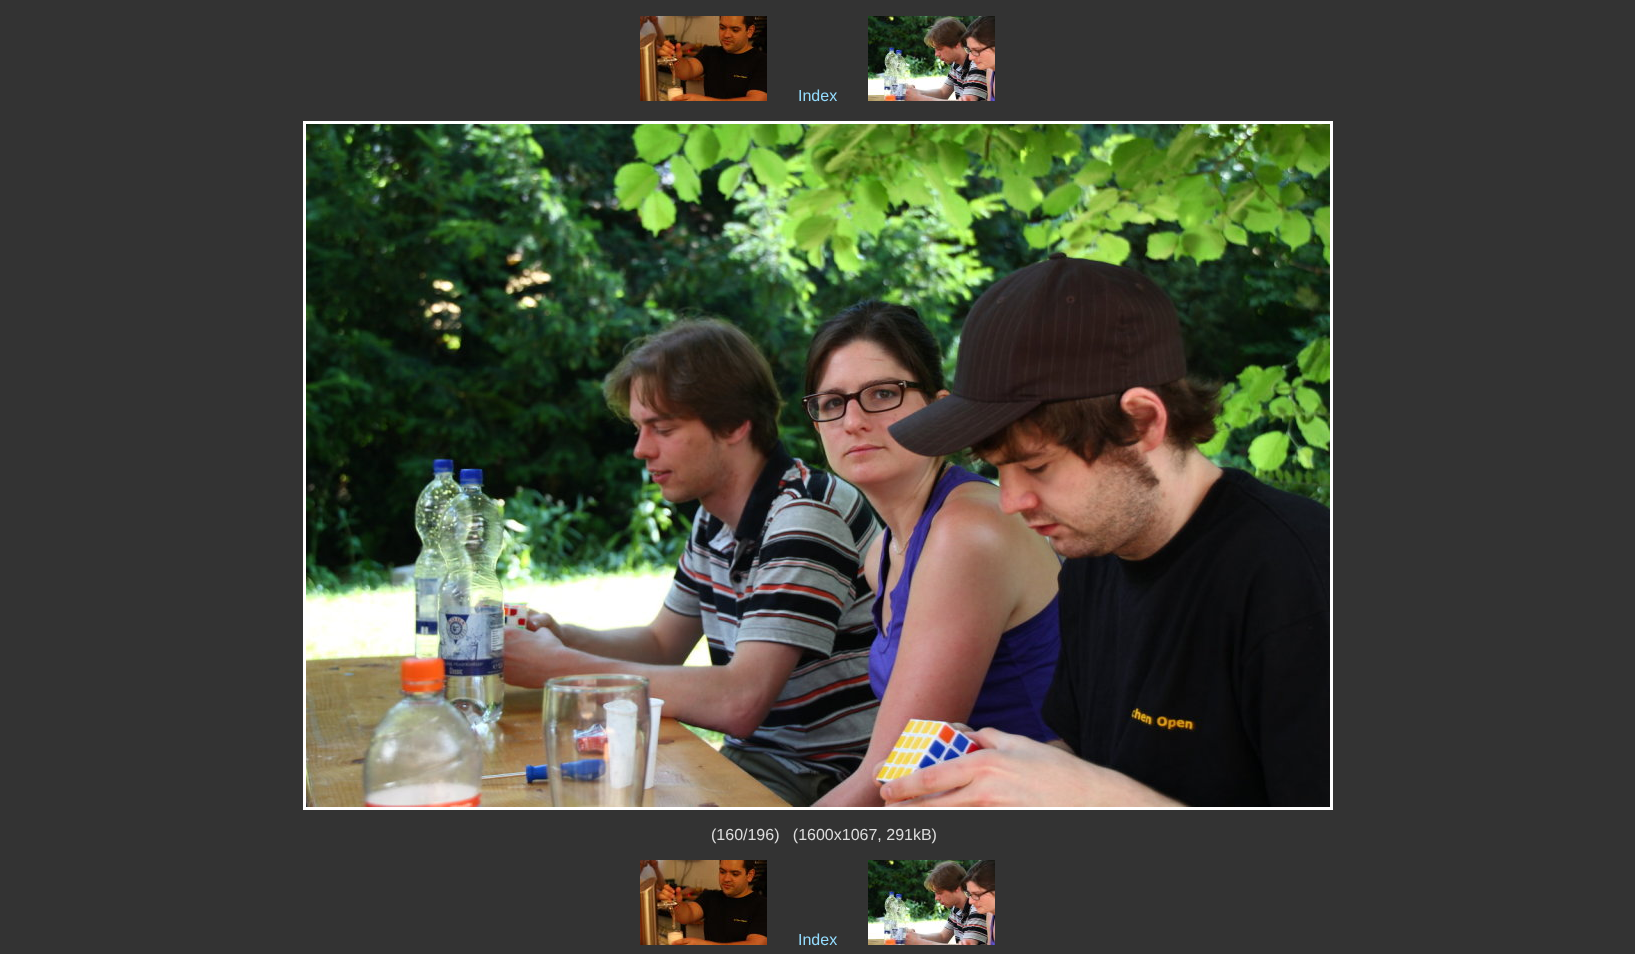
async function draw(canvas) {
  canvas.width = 1635
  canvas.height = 954
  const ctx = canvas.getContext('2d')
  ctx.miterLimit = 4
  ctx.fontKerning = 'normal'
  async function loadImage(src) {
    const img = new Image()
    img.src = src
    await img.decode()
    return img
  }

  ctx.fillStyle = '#333'
  ctx.fillRect(0, 0, 1635, 954)
  ctx.drawImage(await loadImage('image0.png'), 640, 16, 127, 85)
  ctx.font = '16px Liberation Sans'
  ctx.fillStyle = '#95ddff'
  ctx.fillText('Index', 798, 101)
  ctx.drawImage(await loadImage('image1.png'), 868, 16, 127, 85)
  ctx.strokeStyle = '#fff'
  ctx.lineWidth = 3
  ctx.strokeRect(304.5, 122.5, 1027, 686)
  ctx.drawImage(await loadImage('image2.png'), 306, 124, 1024, 683)
  ctx.fillStyle = '#ddd'
  ctx.fillText('(160/196)   (1600x1067, 291kB)', 711, 840)
  ctx.drawImage(await loadImage('image0.png'), 640, 860, 127, 85)
  ctx.fillStyle = '#95ddff'
  ctx.fillText('Index', 798, 945)
  ctx.drawImage(await loadImage('image1.png'), 868, 860, 127, 85)
}

draw(document.querySelector('canvas'))
